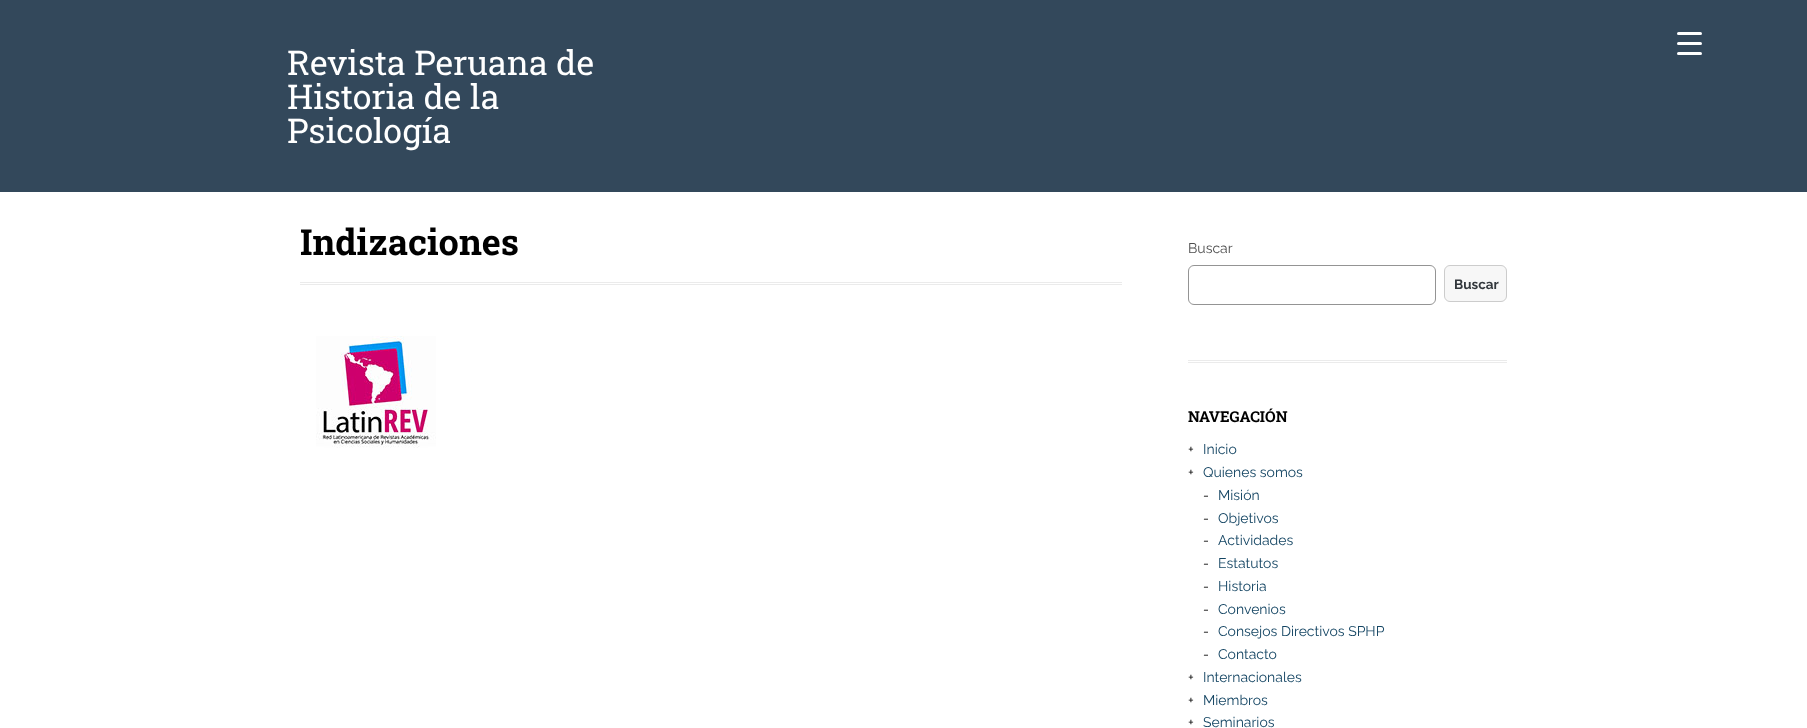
async function draw(canvas) {
  canvas.width = 1807
  canvas.height = 728
  const ctx = canvas.getContext('2d')
  ctx.miterLimit = 4
  ctx.fontKerning = 'normal'
  async function loadImage(src) {
    const img = new Image()
    img.src = src
    await img.decode()
    return img
  }

  ctx.fillStyle = '#fff'
  ctx.fillRect(0, 0, 1807, 728)
  ctx.fillStyle = '#33485b'
  ctx.fillRect(0, 0, 1807, 192)
  ctx.fillStyle = '#fff'
  ctx.beginPath()
  ctx.roundRect(1677, 42, 25, 3, 1.5)
  ctx.fill()
  ctx.beginPath()
  ctx.roundRect(1677, 32, 25, 3, 1.5)
  ctx.fill()
  ctx.beginPath()
  ctx.roundRect(1677, 52, 25, 3, 1.5)
  ctx.fill()
  ctx.font = '34px Roboto Slab'
  ctx.fillText('Revista Peruana de', 287, 75)
  ctx.fillText('Historia de la', 287, 109)
  ctx.fillText('Psicología', 287, 143)
  ctx.font = 'bold 36px Roboto Slab'
  ctx.fillStyle = '#000'
  ctx.fillText('Indizaciones', 300, 255)
  ctx.fillStyle = '#ebebeb'
  ctx.fillRect(300, 282, 822, 1)
  ctx.fillRect(300, 284, 822, 1)
  ctx.drawImage(await loadImage('image0.png'), 316, 336, 120, 112)
  ctx.font = '14px Raleway'
  ctx.fillStyle = '#4d4d4d'
  ctx.fillText('Buscar', 1188, 253)
  ctx.beginPath()
  ctx.roundRect(1188.5, 265.5, 247, 39, 5.5)
  ctx.strokeStyle = '#949494'
  ctx.stroke()
  ctx.fillStyle = '#f7f7f7'
  ctx.beginPath()
  ctx.roundRect(1444.5, 265.5, 62, 36, 5.5)
  ctx.fill()
  ctx.strokeStyle = '#ccc'
  ctx.stroke()
  ctx.font = 'bold 13.5px Raleway'
  ctx.fillStyle = '#32373c'
  ctx.fillText('Buscar', 1454, 289)
  ctx.fillStyle = '#ebebeb'
  ctx.fillRect(1188, 360, 319, 1)
  ctx.fillRect(1188, 362, 319, 1)
  ctx.font = 'bold 15px Roboto Slab'
  ctx.fillStyle = '#000'
  ctx.fillText('NAVEGACIÓN', 1188, 422)
  ctx.font = '14px Raleway'
  ctx.fillText('+', 1188, 454)
  ctx.fillStyle = '#144563'
  ctx.fillText('Inicio', 1203, 454)
  ctx.fillStyle = '#000'
  ctx.fillText('+', 1188, 477)
  ctx.fillStyle = '#144563'
  ctx.fillText('Quienes somos', 1203, 477)
  ctx.fillStyle = '#000'
  ctx.fillText('-', 1203, 500)
  ctx.fillStyle = '#144563'
  ctx.fillText('Misión', 1218, 500)
  ctx.fillStyle = '#000'
  ctx.fillText('-', 1203, 523)
  ctx.fillStyle = '#144563'
  ctx.fillText('Objetivos', 1218, 523)
  ctx.fillStyle = '#000'
  ctx.fillText('-', 1203, 545)
  ctx.fillStyle = '#144563'
  ctx.fillText('Actividades', 1218, 545)
  ctx.fillStyle = '#000'
  ctx.fillText('-', 1203, 568)
  ctx.fillStyle = '#144563'
  ctx.fillText('Estatutos', 1218, 568)
  ctx.fillStyle = '#000'
  ctx.fillText('-', 1203, 591)
  ctx.fillStyle = '#144563'
  ctx.fillText('Historia', 1218, 591)
  ctx.fillStyle = '#000'
  ctx.fillText('-', 1203, 614)
  ctx.fillStyle = '#144563'
  ctx.fillText('Convenios', 1218, 614)
  ctx.fillStyle = '#000'
  ctx.fillText('-', 1203, 636)
  ctx.fillStyle = '#144563'
  ctx.fillText('Consejos Directivos SPHP', 1218, 636)
  ctx.fillStyle = '#000'
  ctx.fillText('-', 1203, 659)
  ctx.fillStyle = '#144563'
  ctx.fillText('Contacto', 1218, 659)
  ctx.fillStyle = '#000'
  ctx.fillText('+', 1188, 682)
  ctx.fillStyle = '#144563'
  ctx.fillText('Internacionales', 1203, 682)
  ctx.fillStyle = '#000'
  ctx.fillText('+', 1188, 705)
  ctx.fillStyle = '#144563'
  ctx.fillText('Miembros', 1203, 705)
  ctx.fillStyle = '#000'
  ctx.fillText('+', 1188, 727)
  ctx.fillStyle = '#144563'
  ctx.fillText('Seminarios', 1203, 727)
}

draw(document.querySelector('canvas'))
